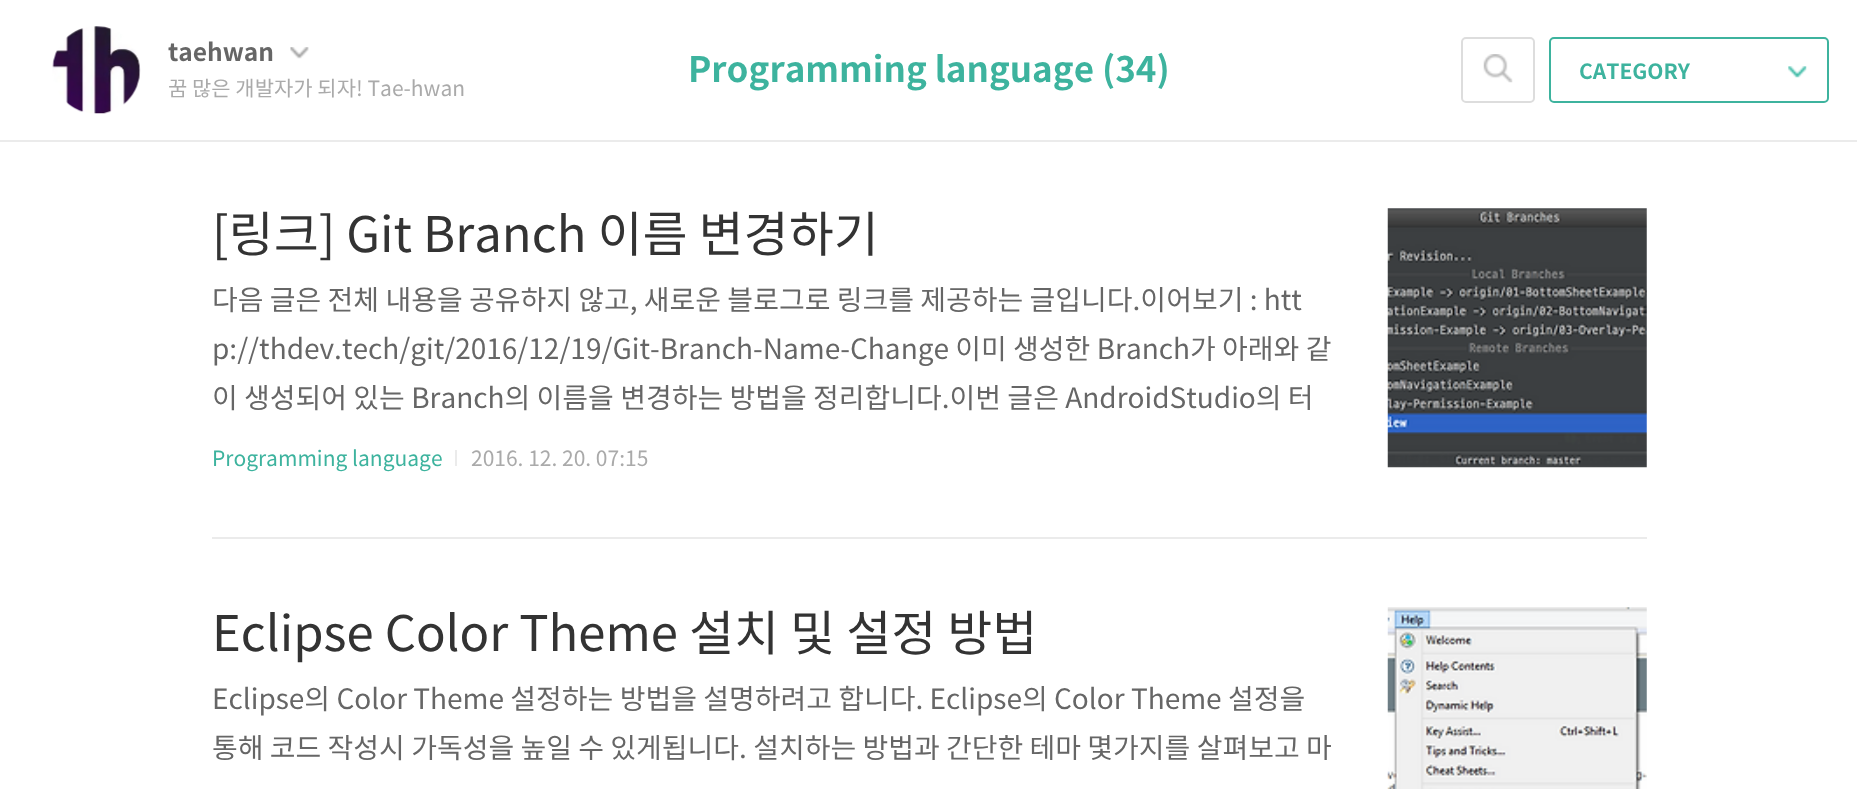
async function draw(canvas) {
  canvas.width = 1857
  canvas.height = 789
  const ctx = canvas.getContext('2d')
  ctx.miterLimit = 4
  ctx.fontKerning = 'normal'
  async function loadImage(src) {
    const img = new Image()
    img.src = src
    await img.decode()
    return img
  }

  ctx.fillStyle = '#fff'
  ctx.fillRect(0, 0, 1857, 789)
  ctx.fillStyle = '#ebebeb'
  ctx.fillRect(0, 140, 1857, 2)
  ctx.drawImage(await loadImage('image0.png'), 52, 26, 89, 88)
  ctx.font = 'bold 24.5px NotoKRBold'
  ctx.fillStyle = '#666'
  ctx.fillText('taehwan', 168, 61)
  ctx.drawImage(await loadImage('image1.png'), 290, 47, 19, 12)
  ctx.font = '21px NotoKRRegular'
  ctx.fillStyle = '#aaa'
  ctx.fillText('꿈 많은 개발자가 되자! Tae-hwan', 168, 96)
  ctx.font = 'bold 35px NotoKRBold'
  ctx.fillStyle = '#3db39e'
  ctx.fillText('Programming language (34)', 688, 82)
  ctx.beginPath()
  ctx.roundRect(1462, 38, 72, 64, 4)
  ctx.strokeStyle = '#ddd'
  ctx.lineWidth = 2
  ctx.stroke()
  ctx.drawImage(await loadImage('image2.png'), 1483, 54, 30, 29)
  ctx.beginPath()
  ctx.roundRect(1550, 38, 278, 64, 4)
  ctx.strokeStyle = '#3db39e'
  ctx.stroke()
  ctx.font = 'bold 21px NotoKRBold'
  ctx.fillText('CATEGORY', 1579, 79)
  ctx.drawImage(await loadImage('image3.png'), 1788, 66, 19, 12)
  ctx.fillStyle = '#ebebeb'
  ctx.fillRect(212, 537, 1435, 2)
  ctx.font = '49px NotoKRRegular'
  ctx.fillStyle = '#333'
  ctx.fillText('[링크] Git Branch 이름 변경하기', 212, 252)
  ctx.font = '28px NotoKRRegular'
  ctx.fillStyle = '#666'
  ctx.fillText('다음 글은 전체 내용을 공유하지 않고, 새로운 블로그로 링크를 제공하는 글입니다.이어보기 : htt', 212, 310)
  ctx.fillText('p://thdev.tech/git/2016/12/19/Git-Branch-Name-Change 이미 생성한 Branch가 아래와 같', 212, 359)
  ctx.fillText('이 생성되어 있는 Branch의 이름을 변경하는 방법을 정리합니다.이번 글은 AndroidStudio의 터', 212, 408)
  ctx.drawImage(await loadImage('image4.png'), 1387, 208, 260, 260)
  ctx.font = '21px NotoKRRegular'
  ctx.fillStyle = '#3db39e'
  ctx.fillText('Programming language', 212, 466)
  ctx.fillStyle = '#ebebeb'
  ctx.fillRect(455, 450, 2, 16)
  ctx.fillStyle = '#aaa'
  ctx.fillText('2016. 12. 20. 07:15', 471, 466)
  ctx.font = '49px NotoKRRegular'
  ctx.fillStyle = '#333'
  ctx.fillText('Eclipse Color Theme 설치 및 설정 방법', 212, 651)
  ctx.font = '28px NotoKRRegular'
  ctx.fillStyle = '#666'
  ctx.fillText('Eclipse의 Color Theme 설정하는 방법을 설명하려고 합니다. Eclipse의 Color Theme 설정을', 212, 709)
  ctx.fillText('통해 코드 작성시 가독성을 높일 수 있게됩니다. 설치하는 방법과 간단한 테마 몇가지를 살펴보고 마', 212, 758)
  ctx.drawImage(await loadImage('image5.png'), 1387, 607, 260, 182)
}

draw(document.querySelector('canvas'))
